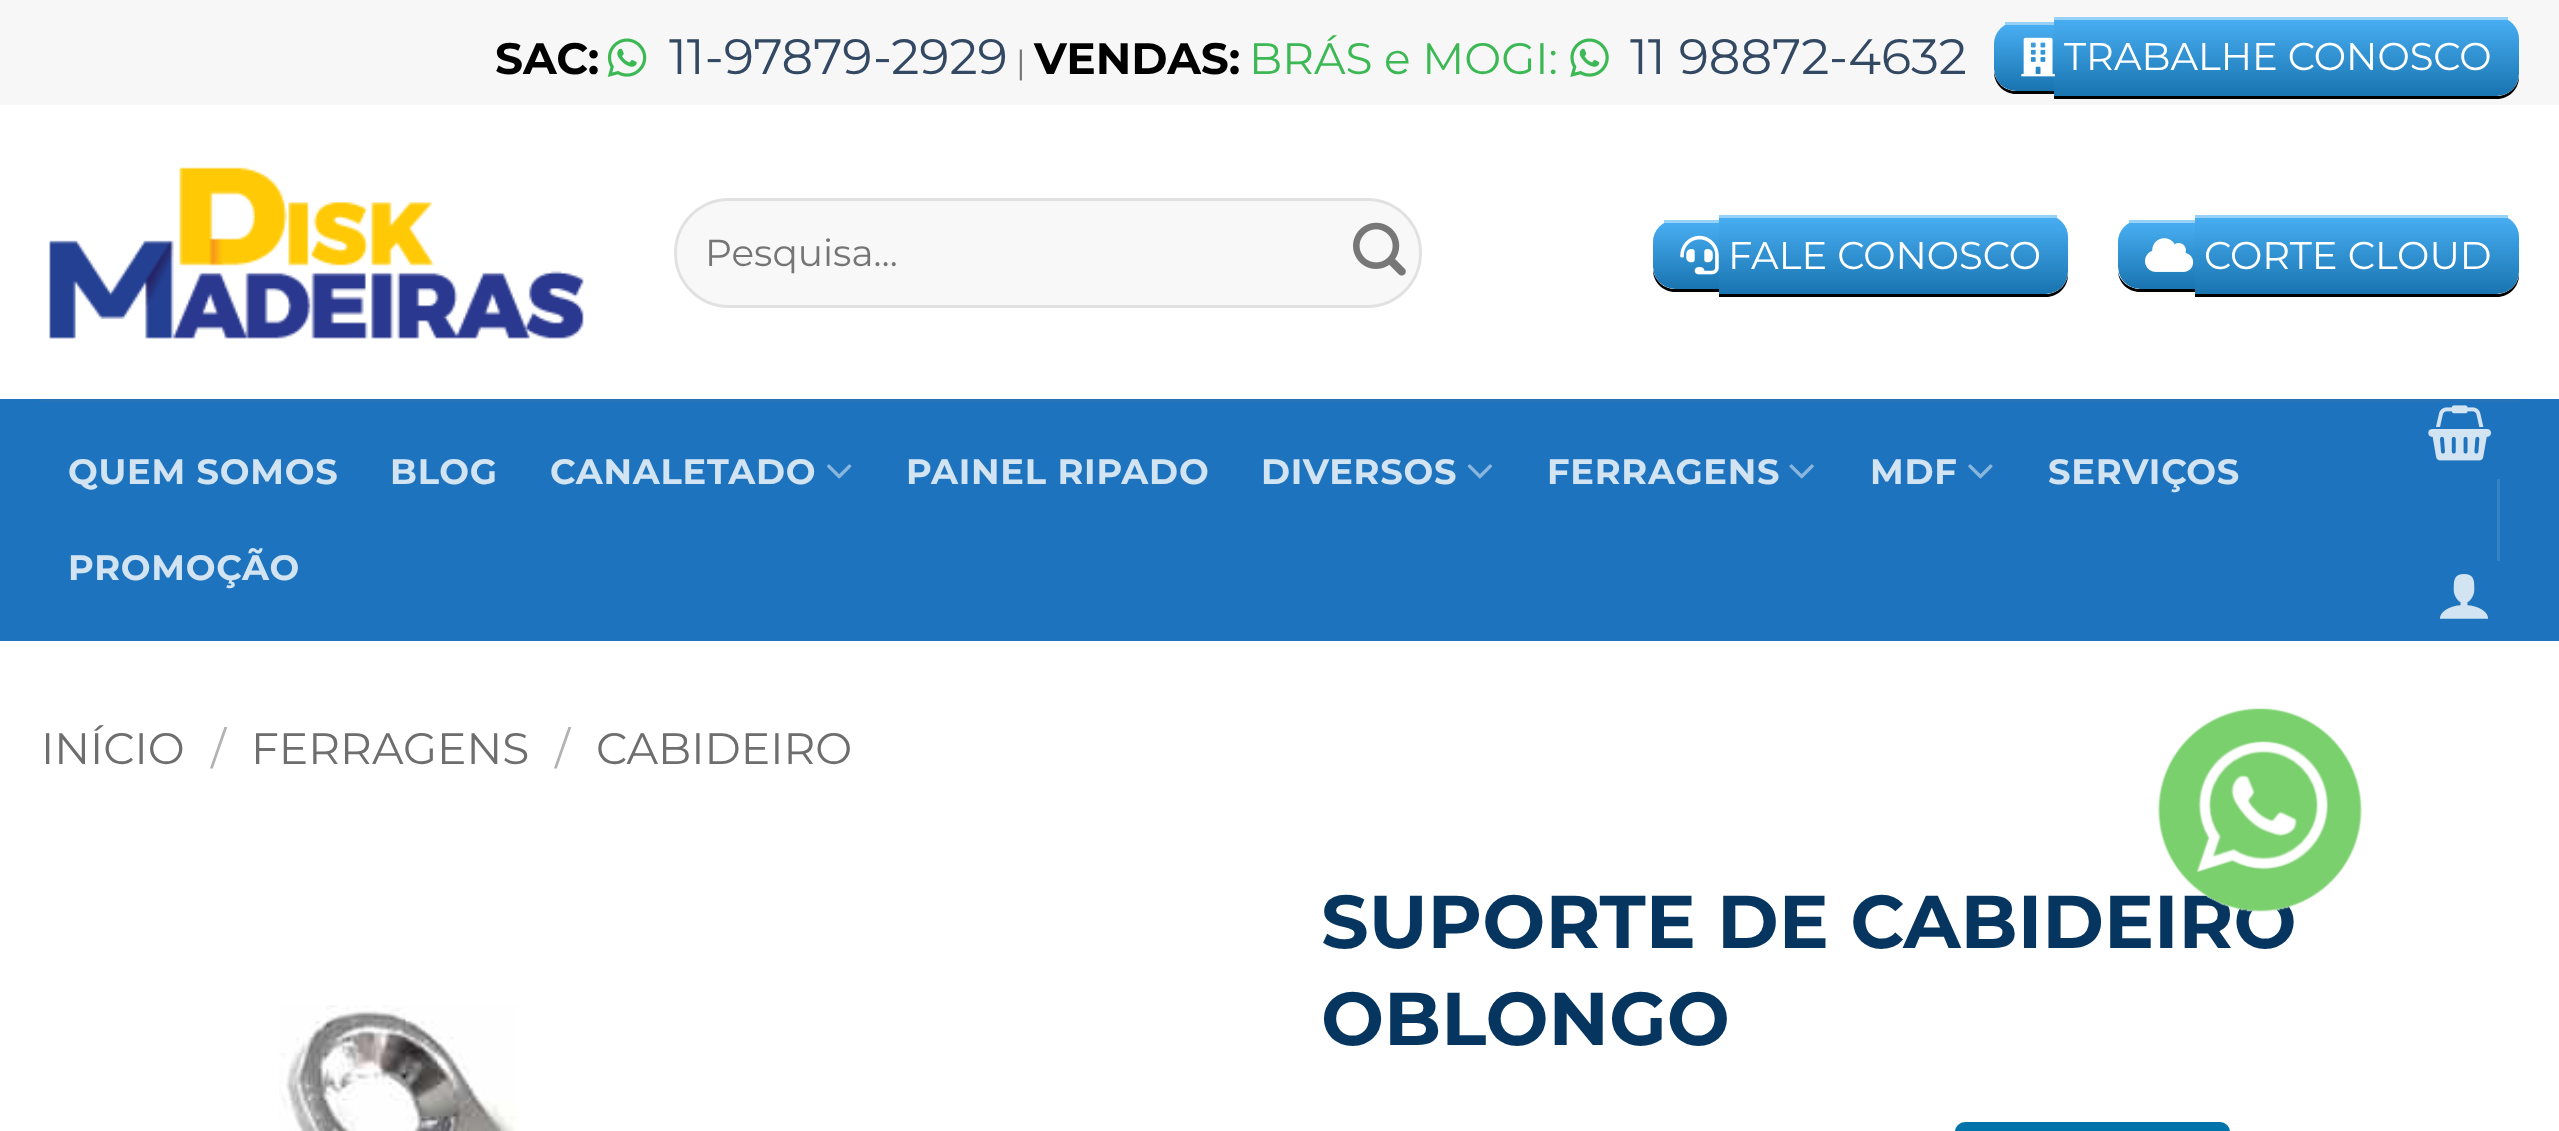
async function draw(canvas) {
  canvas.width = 2559
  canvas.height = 1131
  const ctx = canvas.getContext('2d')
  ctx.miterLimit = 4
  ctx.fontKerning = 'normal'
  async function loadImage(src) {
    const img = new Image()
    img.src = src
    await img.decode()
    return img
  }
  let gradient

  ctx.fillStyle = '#fff'
  ctx.fillRect(0, 0, 2559, 1131)
  ctx.fillStyle = '#f7f7f7'
  ctx.fillRect(0, 0, 2559, 105)
  ctx.font = 'bold 44px Montserrat'
  ctx.fillStyle = '#000'
  ctx.fillText('SAC:', 495, 74)
  ctx.drawImage(await loadImage('image0.png'), 607, 38, 40, 39)
  ctx.font = '49.5px Montserrat'
  ctx.fillStyle = '#334862'
  ctx.fillText('11-97879-2929', 669, 74)
  ctx.font = '33px Montserrat'
  ctx.fillStyle = '#757575'
  ctx.fillText('|', 1016, 74)
  ctx.font = 'bold 44px Montserrat'
  ctx.fillStyle = '#000'
  ctx.fillText('VENDAS:', 1034, 74)
  ctx.font = '44px Montserrat'
  ctx.fillStyle = '#3cb854'
  ctx.fillText('BRÁS e MOGI:', 1249, 74)
  ctx.drawImage(await loadImage('image1.png'), 1570, 38, 39, 39)
  ctx.font = '49.5px Montserrat'
  ctx.fillStyle = '#334862'
  ctx.fillText('11 98872-4632', 1630, 74)
  ctx.fillStyle = '#000'
  ctx.beginPath()
  ctx.moveTo(1994, 72)
  ctx.bezierCurveTo(1994, 84, 2004, 94, 2016, 94)
  ctx.lineTo(2054, 94)
  ctx.lineTo(2054, 91)
  ctx.lineTo(2016, 91)
  ctx.bezierCurveTo(2005, 91, 1996, 83, 1994, 72)
  ctx.closePath()
  ctx.fill()
  ctx.save()
  ctx.beginPath()
  ctx.roundRect(1994, 22, 60, 69, [22, 0, 0, 22])
  ctx.clip()
  gradient = ctx.createLinearGradient(2024, 25, 2024, 91)
  gradient.addColorStop(0, '#48aef2')
  gradient.addColorStop(1, '#1974b0')
  ctx.fillStyle = gradient
  ctx.beginPath()
  ctx.roundRect(1994, 25, 60, 66, [0, 0, 0, 22])
  ctx.fill()
  ctx.restore()
  ctx.fillStyle = '#96d1f8'
  ctx.fillRect(2005, 22, 49, 3)
  ctx.fillStyle = '#000'
  ctx.beginPath()
  ctx.moveTo(2054, 19)
  ctx.lineTo(2054, 99)
  ctx.lineTo(2497, 99)
  ctx.bezierCurveTo(2509, 99, 2519, 89, 2519, 77)
  ctx.lineTo(2519, 74)
  ctx.bezierCurveTo(2519, 86, 2509, 96, 2497, 96)
  ctx.lineTo(2054, 96)
  ctx.closePath()
  ctx.fill()
  ctx.save()
  ctx.beginPath()
  ctx.roundRect(2054, 17, 465, 79, [0, 22, 22, 0])
  ctx.clip()
  gradient = ctx.createLinearGradient(2287, 19, 2287, 96)
  gradient.addColorStop(0, '#48aef2')
  gradient.addColorStop(1, '#1974b0')
  ctx.fillStyle = gradient
  ctx.beginPath()
  ctx.roundRect(2054, 19, 465, 77, [0, 0, 22, 0])
  ctx.fill()
  ctx.restore()
  ctx.fillStyle = '#96d1f8'
  ctx.fillRect(2054, 17, 454, 3)
  ctx.drawImage(await loadImage('image2.png'), 2021, 37, 34, 40)
  ctx.font = '38.5px Montserrat'
  ctx.fillStyle = '#fff'
  ctx.fillText('TRABALHE CONOSCO', 2064, 70)
  ctx.drawImage(await loadImage('image3.png'), 49, 167, 535, 172)
  ctx.fillStyle = '#f8f8f8'
  ctx.beginPath()
  ctx.roundRect(674, 198, 748, 110, 55)
  ctx.fill()
  ctx.beginPath()
  ctx.roundRect(675.5, 199.5, 745, 107, 53.5)
  ctx.strokeStyle = '#00000017'
  ctx.lineWidth = 3
  ctx.stroke()
  ctx.font = '37.5px Montserrat'
  ctx.fillStyle = '#757575'
  ctx.fillText('Pesquisa…', 705, 266)
  ctx.drawImage(await loadImage('image4.png'), 1353, 222, 53, 54)
  ctx.fillStyle = '#000'
  ctx.beginPath()
  ctx.moveTo(1653, 270)
  ctx.bezierCurveTo(1653, 282, 1663, 292, 1675, 292)
  ctx.lineTo(1719, 292)
  ctx.lineTo(1719, 223)
  ctx.lineTo(1719, 289)
  ctx.lineTo(1675, 289)
  ctx.bezierCurveTo(1664, 289, 1655, 281, 1653, 270)
  ctx.closePath()
  ctx.fill()
  ctx.save()
  ctx.beginPath()
  ctx.roundRect(1653, 220, 66, 69, [22, 0, 0, 22])
  ctx.clip()
  gradient = ctx.createLinearGradient(1686, 223, 1686, 289)
  gradient.addColorStop(0, '#48aef2')
  gradient.addColorStop(1, '#1974b0')
  ctx.fillStyle = gradient
  ctx.beginPath()
  ctx.roundRect(1653, 223, 66, 66, [0, 0, 0, 22])
  ctx.fill()
  ctx.restore()
  ctx.fillStyle = '#96d1f8'
  ctx.fillRect(1664, 220, 55, 3)
  ctx.fillStyle = '#000'
  ctx.beginPath()
  ctx.moveTo(1719, 294)
  ctx.lineTo(1719, 297)
  ctx.lineTo(2046, 297)
  ctx.bezierCurveTo(2058, 297, 2068, 287, 2068, 275)
  ctx.lineTo(2068, 272)
  ctx.bezierCurveTo(2068, 284, 2058, 294, 2046, 294)
  ctx.closePath()
  ctx.fill()
  ctx.save()
  ctx.beginPath()
  ctx.roundRect(1719, 215, 349, 79, [0, 22, 22, 0])
  ctx.clip()
  gradient = ctx.createLinearGradient(1893, 217, 1893, 294)
  gradient.addColorStop(0, '#48aef2')
  gradient.addColorStop(1, '#1974b0')
  ctx.fillStyle = gradient
  ctx.beginPath()
  ctx.roundRect(1719, 217, 349, 77, [0, 0, 22, 0])
  ctx.fill()
  ctx.restore()
  ctx.fillStyle = '#96d1f8'
  ctx.fillRect(1719, 215, 338, 3)
  ctx.drawImage(await loadImage('image5.png'), 1680, 235, 39, 40)
  ctx.font = '38.5px Montserrat'
  ctx.fillStyle = '#fff'
  ctx.fillText('FALE CONOSCO', 1728, 269)
  ctx.fillStyle = '#000'
  ctx.beginPath()
  ctx.moveTo(2118, 272)
  ctx.bezierCurveTo(2119, 283, 2128, 292, 2140, 292)
  ctx.lineTo(2195, 292)
  ctx.lineTo(2195, 223)
  ctx.lineTo(2194, 223)
  ctx.lineTo(2194, 289)
  ctx.lineTo(2140, 289)
  ctx.bezierCurveTo(2129, 289, 2120, 281, 2118, 272)
  ctx.closePath()
  ctx.fill()
  ctx.save()
  ctx.beginPath()
  ctx.roundRect(2118, 220, 77, 69, [22, 0, 0, 22])
  ctx.clip()
  gradient = ctx.createLinearGradient(2156, 223, 2156, 289)
  gradient.addColorStop(0, '#48aef2')
  gradient.addColorStop(1, '#1974b0')
  ctx.fillStyle = gradient
  ctx.beginPath()
  ctx.roundRect(2118, 223, 77, 66, [0, 0, 0, 22])
  ctx.fill()
  ctx.restore()
  ctx.fillStyle = '#96d1f8'
  ctx.fillRect(2129, 220, 66, 3)
  ctx.fillStyle = '#000'
  ctx.beginPath()
  ctx.moveTo(2195, 294)
  ctx.lineTo(2195, 297)
  ctx.lineTo(2497, 297)
  ctx.bezierCurveTo(2509, 297, 2519, 287, 2519, 275)
  ctx.lineTo(2519, 272)
  ctx.bezierCurveTo(2519, 284, 2509, 294, 2497, 294)
  ctx.closePath()
  ctx.fill()
  ctx.save()
  ctx.beginPath()
  ctx.roundRect(2195, 215, 324, 79, [0, 22, 22, 0])
  ctx.clip()
  gradient = ctx.createLinearGradient(2357, 217, 2357, 294)
  gradient.addColorStop(0, '#48aef2')
  gradient.addColorStop(1, '#1974b0')
  ctx.fillStyle = gradient
  ctx.beginPath()
  ctx.roundRect(2195, 217, 324, 77, [0, 0, 22, 0])
  ctx.fill()
  ctx.restore()
  ctx.fillStyle = '#96d1f8'
  ctx.fillRect(2195, 215, 313, 3)
  ctx.drawImage(await loadImage('image6.png'), 2145, 238, 49, 34)
  ctx.fillStyle = '#fff'
  ctx.fillText('CORTE CLOUD', 2204, 269)
  ctx.fillStyle = '#1e73be'
  ctx.fillRect(0, 399, 2559, 242)
  ctx.fillStyle = '#2773b7'
  ctx.fillRect(41, 399, 2478, 3)
  ctx.letterSpacing = '0.75px'
  ctx.font = 'bold 35.25px Montserrat'
  ctx.fillStyle = '#d2e3f2'
  ctx.fillText('QUEM SOMOS', 68, 484)
  ctx.fillText('BLOG', 390, 484)
  ctx.fillText('CANALETADO', 550, 484)
  ctx.drawImage(await loadImage('image7.png'), 827, 464, 25, 15)
  ctx.fillText('PAINEL RIPADO', 906, 484)
  ctx.fillText('DIVERSOS', 1261, 484)
  ctx.drawImage(await loadImage('image8.png'), 1467, 464, 26, 15)
  ctx.fillText('FERRAGENS', 1547, 484)
  ctx.drawImage(await loadImage('image9.png'), 1789, 464, 25, 15)
  ctx.fillText('MDF', 1870, 484)
  ctx.drawImage(await loadImage('image10.png'), 1968, 464, 25, 15)
  ctx.fillText('SERVIÇOS', 2048, 484)
  ctx.fillText('PROMOÇÃO', 68, 580)
  ctx.drawImage(await loadImage('image11.png'), 2428, 405, 64, 56)
  ctx.fillStyle = '#3581c5'
  ctx.fillRect(2497, 479, 3, 82)
  ctx.drawImage(await loadImage('image12.png'), 2439, 574, 49, 45)
  ctx.letterSpacing = '0px'
  ctx.font = '44px Montserrat'
  ctx.fillStyle = '#6e6e6e'
  ctx.fillText('INÍCIO', 41, 764)
  ctx.fillStyle = '#b2b2b2'
  ctx.fillText('/', 211, 764)
  ctx.fillStyle = '#6e6e6e'
  ctx.fillText('FERRAGENS', 251, 764)
  ctx.fillStyle = '#b2b2b2'
  ctx.fillText('/', 555, 764)
  ctx.fillStyle = '#6e6e6e'
  ctx.fillText('CABIDEIRO', 596, 764)
  ctx.font = 'bold 74.75px Montserrat'
  ctx.fillStyle = '#06355f'
  ctx.fillText('SUPORTE DE CABIDEIRO', 1321, 948)
  ctx.fillText('OBLONGO', 1321, 1045)
  ctx.fillStyle = '#0073aa'
  ctx.beginPath()
  ctx.roundRect(1955, 1122, 275, 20, 11)
  ctx.fill()
  ctx.drawImage(await loadImage('image13.png'), 279, 1005, 238, 126)
  ctx.drawImage(await loadImage('image14.png'), 2157, 708, 205, 204)
}

draw(document.querySelector('canvas'))
